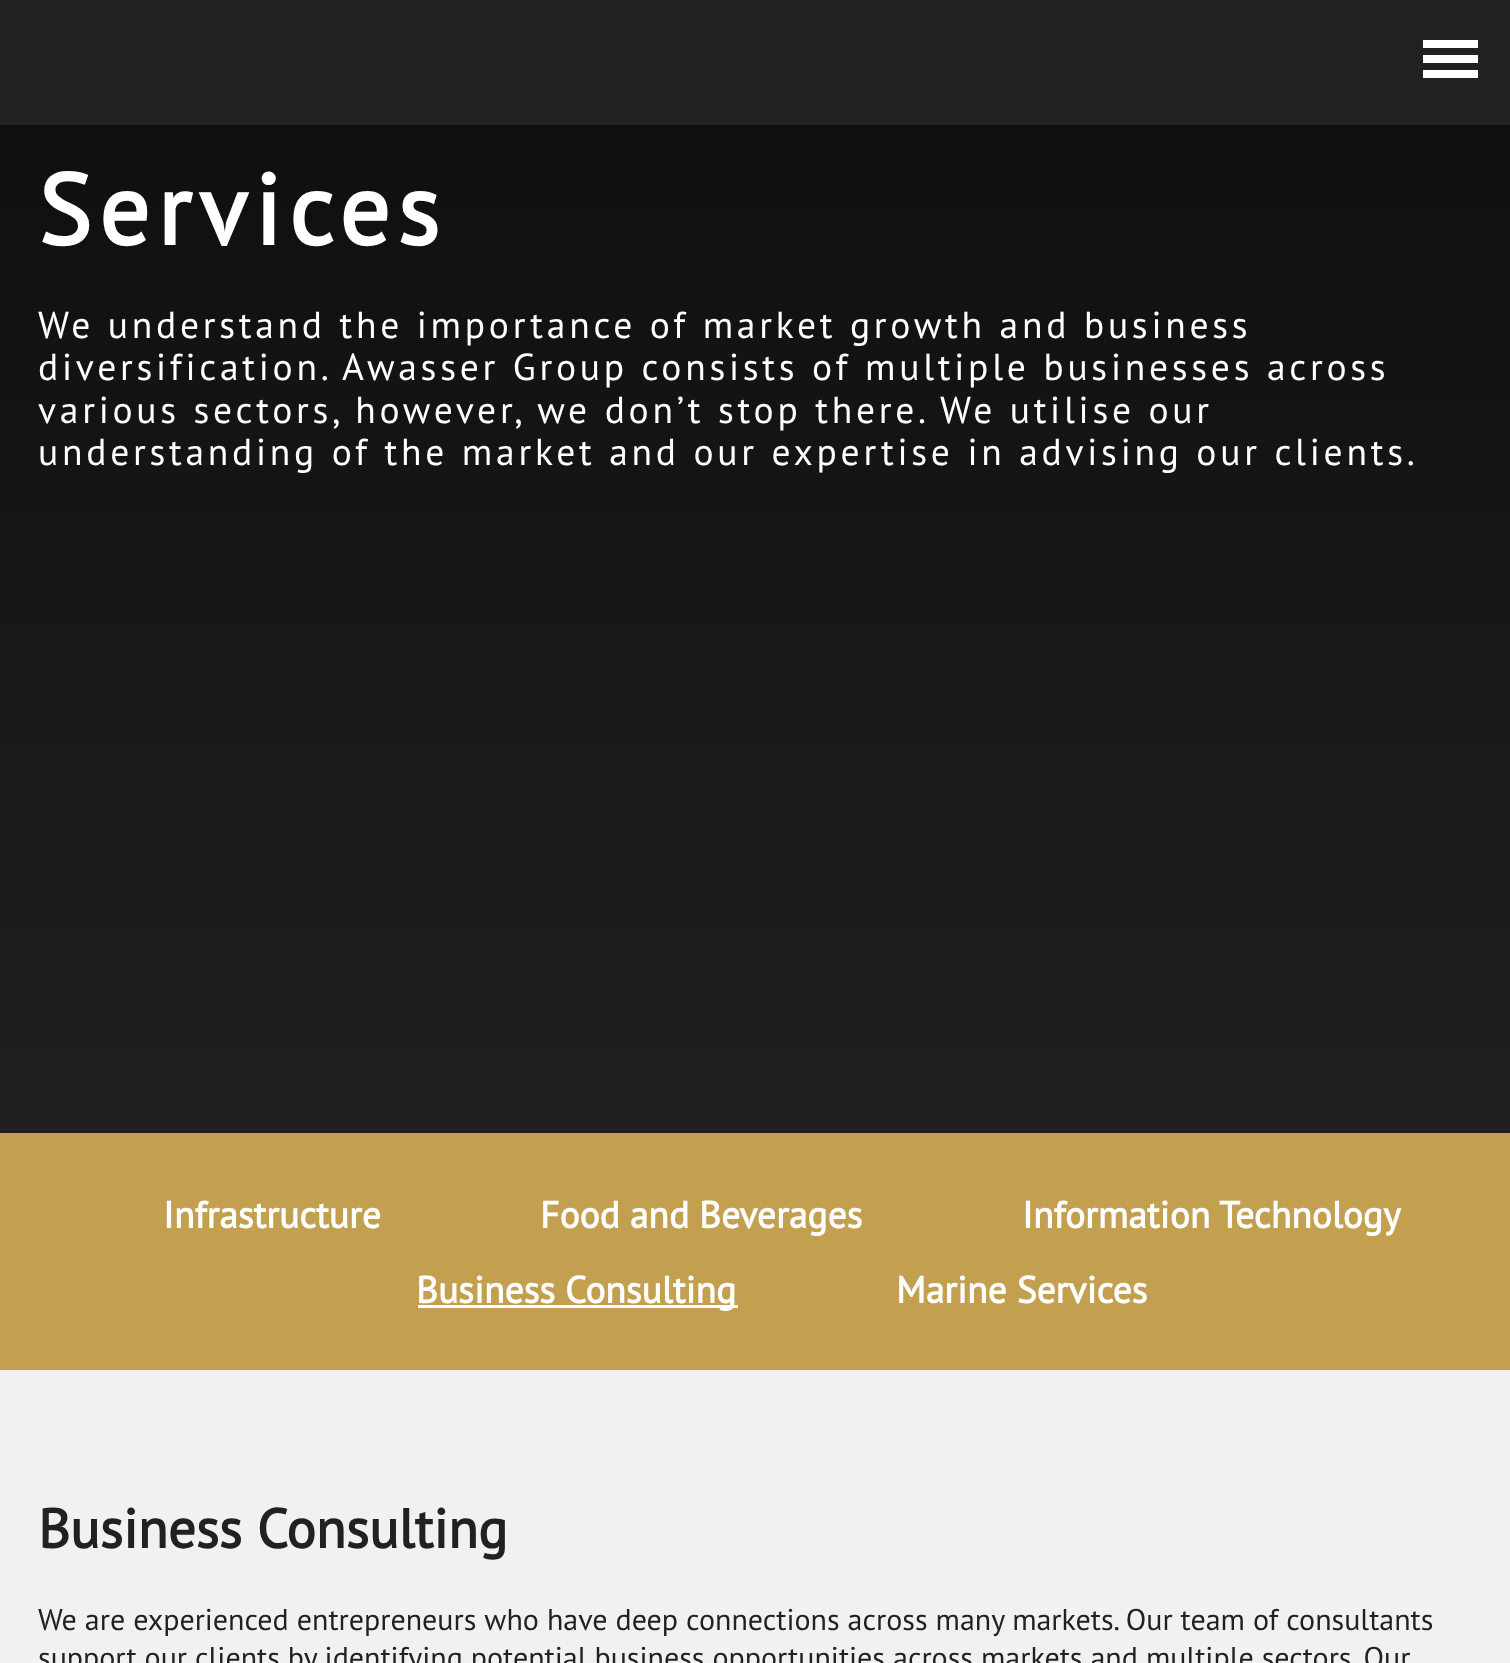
async function draw(canvas) {
  canvas.width = 1510
  canvas.height = 1663
  const ctx = canvas.getContext('2d')
  ctx.miterLimit = 4
  ctx.fontKerning = 'normal'
  let gradient

  ctx.fillStyle = '#c39f50'
  ctx.fillRect(0, 0, 1510, 1663)
  ctx.fillStyle = '#212121'
  ctx.fillRect(0, 0, 1510, 125)
  ctx.fillStyle = '#fff'
  ctx.fillRect(1423, 40, 55, 8)
  ctx.fillRect(1423, 55, 55, 8)
  ctx.fillRect(1423, 70, 55, 8)
  gradient = ctx.createLinearGradient(1133, 0, 1133, 1155)
  gradient.addColorStop(0, '#0d0d0d')
  gradient.addColorStop(1, '#202020')
  ctx.fillStyle = gradient
  ctx.fillRect(0, 125, 1510, 1008)
  ctx.letterSpacing = '7.5px'
  ctx.font = 'bold 100px PT Sans'
  ctx.fillStyle = '#fff'
  ctx.fillText('Services', 38, 245)
  ctx.letterSpacing = '3.75px'
  ctx.font = '37.5px PT Sans'
  ctx.fillText('We understand the importance of market growth and business', 38, 338)
  ctx.fillText('diversification. Awasser Group consists of multiple businesses across', 38, 380)
  ctx.fillText('various sectors, however, we don’t stop there. We utilise our', 38, 423)
  ctx.fillText('understanding of the market and our expertise in advising our clients.', 38, 465)
  ctx.letterSpacing = '0px'
  ctx.font = 'bold 37.5px PT Sans'
  ctx.fillText('Infrastructure', 163, 1228)
  ctx.fillText('Food and Beverages', 540, 1228)
  ctx.fillText('Information Technology', 1022, 1228)
  ctx.fillRect(418, 1305, 320, 3)
  ctx.fillText('Business Consulting', 416, 1303)
  ctx.fillText('Marine Services', 896, 1303)
  ctx.fillStyle = '#f1f1f1'
  ctx.fillRect(0, 1370, 1510, 293)
  ctx.font = 'bold 55px PT Sans'
  ctx.fillStyle = '#212121'
  ctx.fillText('Business Consulting', 38, 1548)
  ctx.font = '30px PT Sans'
  ctx.fillText('We are experienced entrepreneurs who have deep connections across many markets. Our team of consultants', 38, 1630)
  ctx.fillText('support our clients by identifying potential business opportunities across markets and multiple sectors. Our', 38, 1668)
}

draw(document.querySelector('canvas'))
